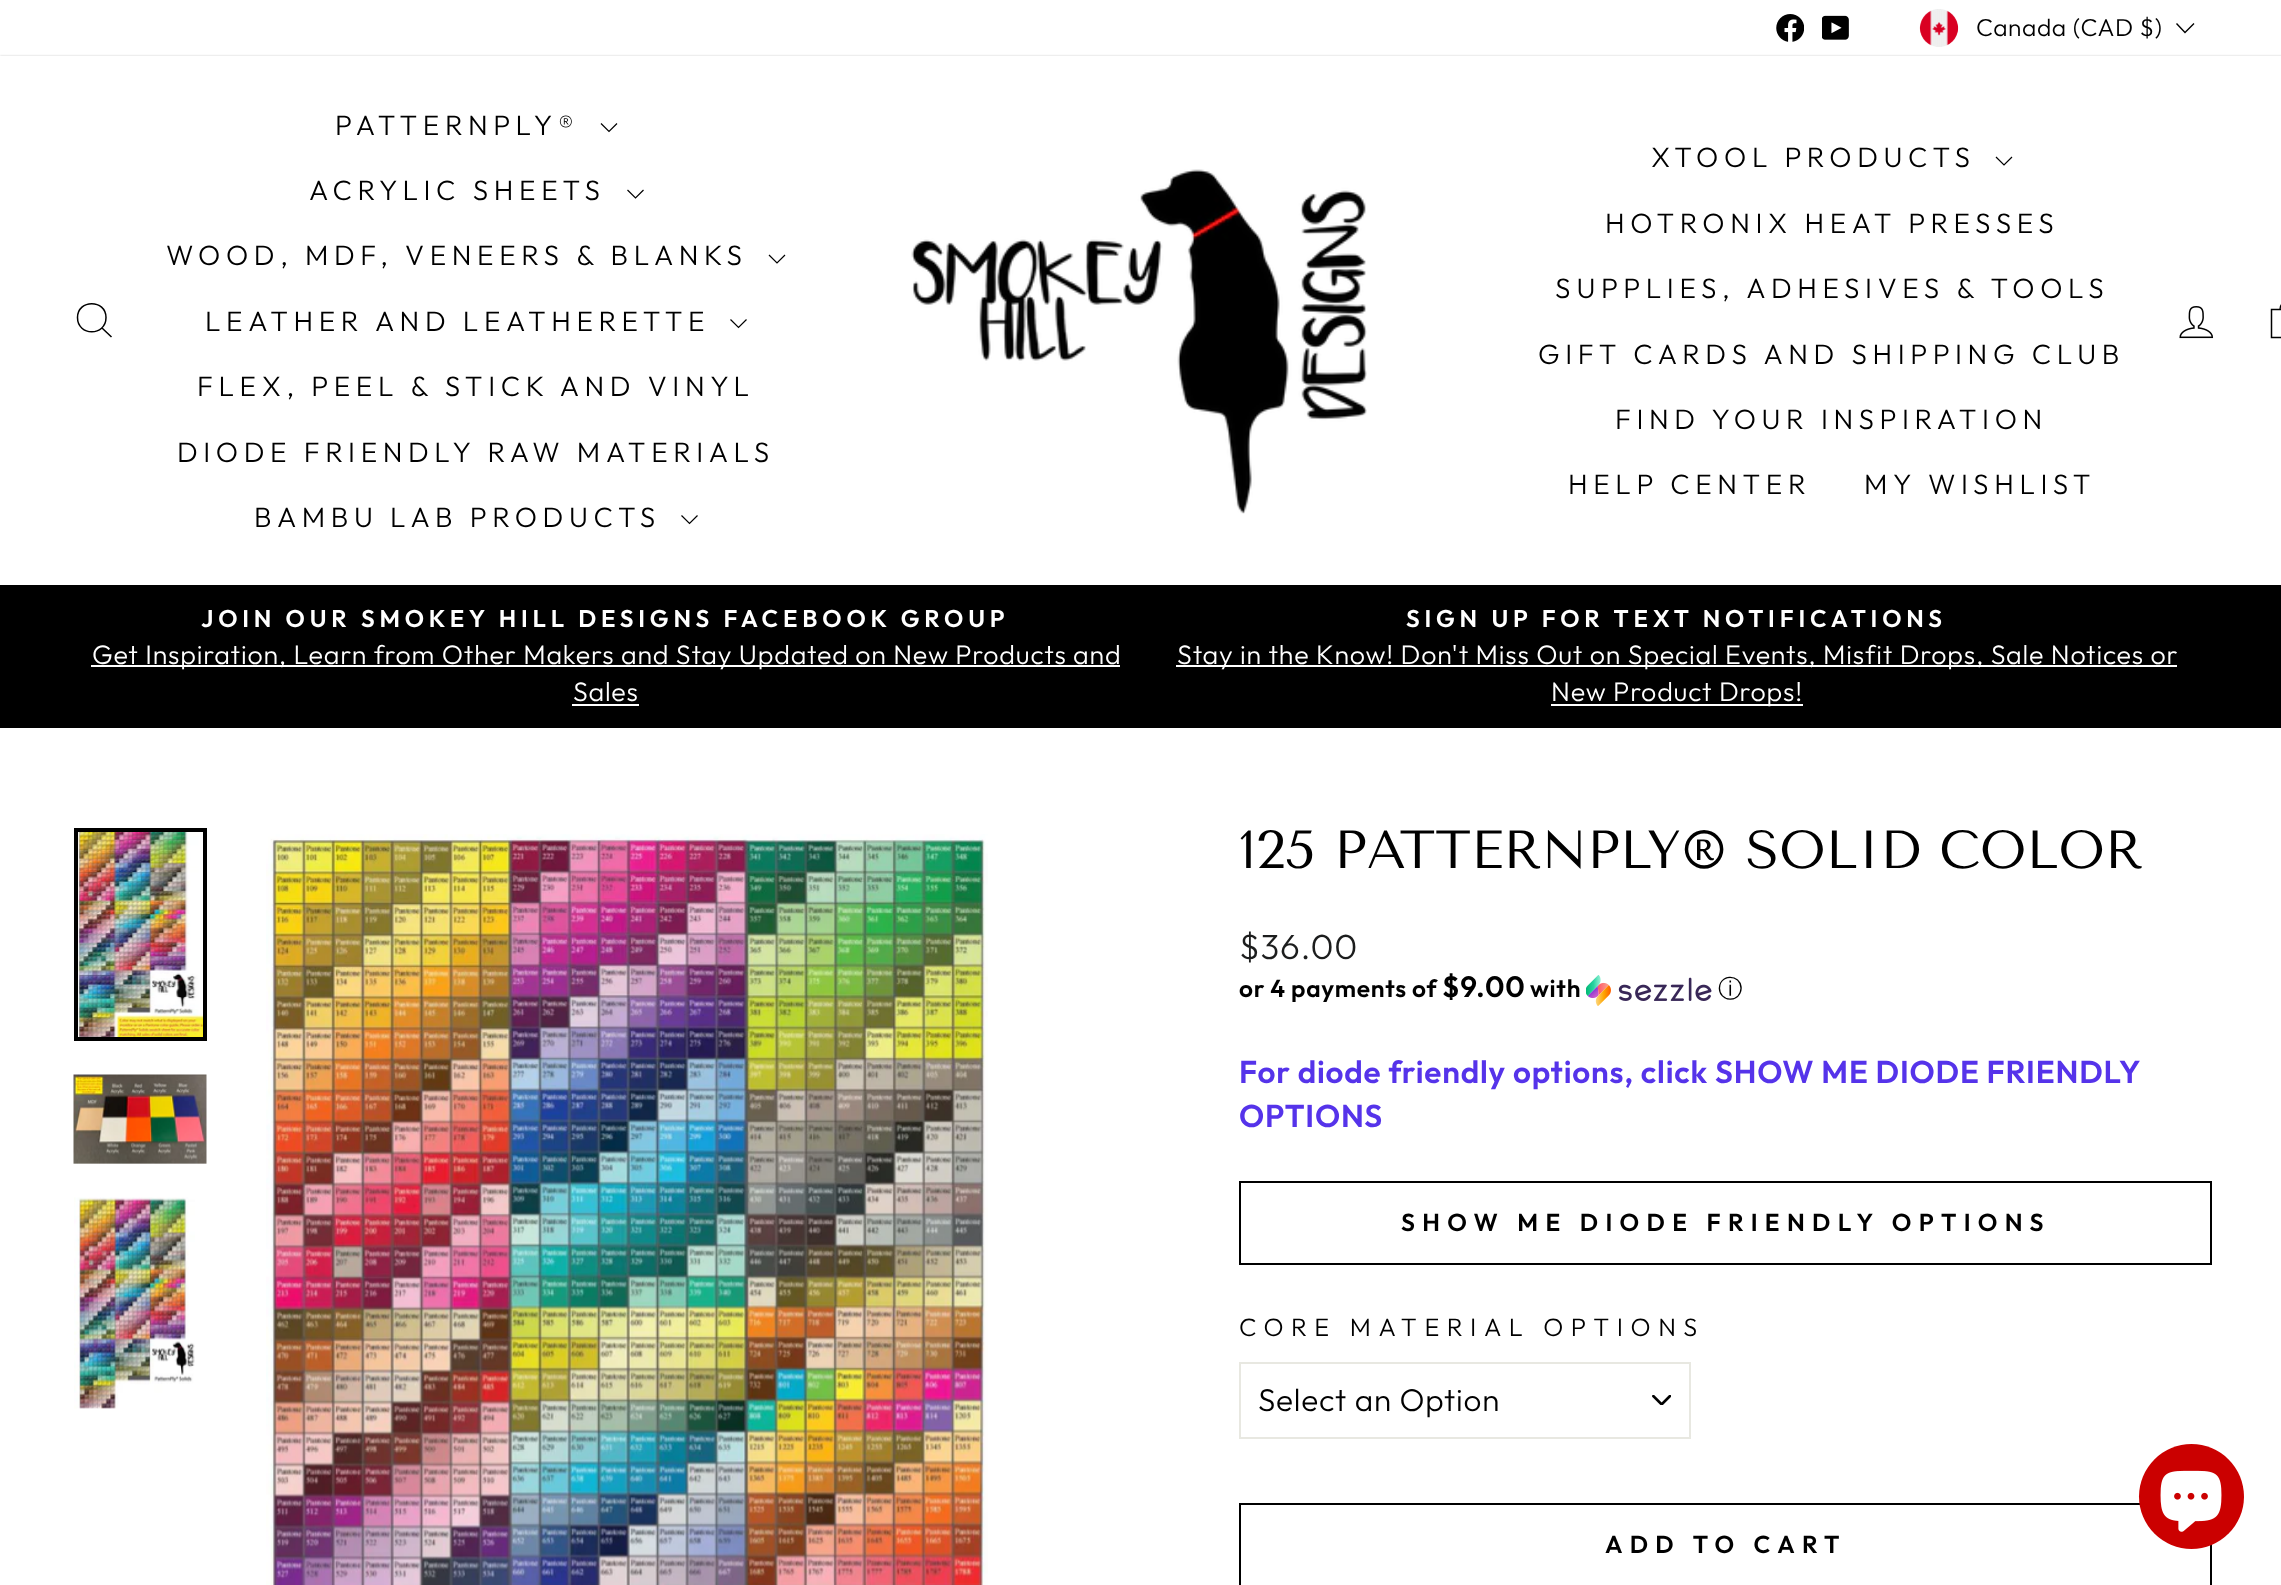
async function draw(canvas) {
  canvas.width = 2281
  canvas.height = 1585
  const ctx = canvas.getContext('2d')
  ctx.miterLimit = 4
  ctx.fontKerning = 'normal'
  async function loadImage(src) {
    const img = new Image()
    img.src = src
    await img.decode()
    return img
  }

  ctx.fillStyle = '#fff'
  ctx.fillRect(0, 0, 2281, 1585)
  ctx.drawImage(await loadImage('image0.png'), 1776, 14, 28, 28)
  ctx.drawImage(await loadImage('image1.png'), 1822, 15, 27, 25)
  ctx.drawImage(await loadImage('image2.png'), 1919, 9, 40, 38)
  ctx.letterSpacing = '0.6px'
  ctx.font = '300 24.5px Outfit'
  ctx.fillStyle = '#000'
  ctx.fillText('Canada (CAD $)', 1976, 36)
  ctx.beginPath()
  ctx.moveTo(2176.5, 23.5)
  ctx.lineTo(2185, 32.5)
  ctx.lineTo(2194, 23.5)
  ctx.strokeStyle = '#000'
  ctx.lineWidth = 1.4
  ctx.stroke()
  ctx.fillRect(0, 585, 2281, 143)
  ctx.fillStyle = '#00000033'
  ctx.filter = 'blur(1px)'
  ctx.beginPath()
  ctx.rect(0, 56, 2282, 529)
  ctx.fill()
  ctx.filter = 'none'
  ctx.fillStyle = '#fff'
  ctx.fillRect(0, 56, 2281, 529)
  ctx.beginPath()
  ctx.moveTo(106, 317.5)
  ctx.bezierCurveTo(106, 336.5, 77.5, 336.5, 77.5, 317.5)
  ctx.bezierCurveTo(77.5, 299, 106, 299, 106, 317.5)
  ctx.closePath()
  ctx.moveTo(111.5, 337)
  ctx.lineTo(102, 328)
  ctx.lineWidth = 1.5
  ctx.stroke()
  ctx.letterSpacing = '5.6px'
  ctx.font = '300 28px Outfit'
  ctx.fillStyle = '#000'
  ctx.fillText('PATTERNPLY®', 335, 135)
  ctx.beginPath()
  ctx.moveTo(601, 123.5)
  ctx.lineTo(609, 131.5)
  ctx.lineTo(617, 123.5)
  ctx.lineWidth = 1.2
  ctx.stroke()
  ctx.fillText('ACRYLIC SHEETS', 309, 200)
  ctx.beginPath()
  ctx.moveTo(627.5, 190)
  ctx.lineTo(635.5, 198)
  ctx.lineTo(643.5, 190)
  ctx.stroke()
  ctx.fillText('WOOD, MDF, VENEERS & BLANKS', 166, 265)
  ctx.beginPath()
  ctx.moveTo(769, 255)
  ctx.lineTo(777, 263)
  ctx.lineTo(785, 255)
  ctx.stroke()
  ctx.fillText('LEATHER AND LEATHERETTE', 205, 331)
  ctx.beginPath()
  ctx.moveTo(730.5, 319.5)
  ctx.lineTo(738.5, 327.5)
  ctx.lineTo(746.5, 319.5)
  ctx.stroke()
  ctx.fillText('FLEX, PEEL & STICK AND VINYL', 197, 396)
  ctx.fillText('DIODE FRIENDLY RAW MATERIALS', 177, 462)
  ctx.fillText('BAMBU LAB PRODUCTS', 254, 527)
  ctx.beginPath()
  ctx.moveTo(681.5, 515.5)
  ctx.lineTo(689.5, 523.5)
  ctx.lineTo(697.5, 515.5)
  ctx.stroke()
  ctx.drawImage(await loadImage('image3.png'), 911, 169, 456, 345)
  ctx.fillText('XTOOL PRODUCTS', 1651, 167)
  ctx.beginPath()
  ctx.moveTo(1996, 157)
  ctx.lineTo(2004, 165)
  ctx.lineTo(2012, 157)
  ctx.stroke()
  ctx.fillText('HOTRONIX HEAT PRESSES', 1605, 233)
  ctx.fillText('SUPPLIES, ADHESIVES & TOOLS', 1555, 298)
  ctx.fillText('GIFT CARDS AND SHIPPING CLUB', 1538, 364)
  ctx.fillText('FIND YOUR INSPIRATION', 1615, 429)
  ctx.fillText('HELP CENTER', 1568, 494)
  ctx.fillText('MY WISHLIST', 1864, 494)
  ctx.drawImage(await loadImage('image4.png'), 2179, 306, 35, 33)
  ctx.beginPath()
  ctx.moveTo(2271.5, 309.5)
  ctx.lineTo(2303, 309.5)
  ctx.lineTo(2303, 337.5)
  ctx.lineTo(2271.5, 337.5)
  ctx.closePath()
  ctx.moveTo(2280, 309.5)
  ctx.bezierCurveTo(2280, 304, 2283, 302.5, 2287, 302.5)
  ctx.bezierCurveTo(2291.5, 302.5, 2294.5, 304, 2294.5, 309.5)
  ctx.lineWidth = 1.5
  ctx.stroke()
  ctx.letterSpacing = '4.8px'
  ctx.font = '600 24.1px Outfit'
  ctx.fillStyle = '#fff'
  ctx.fillText('JOIN OUR SMOKEY HILL DESIGNS FACEBOOK GROUP', 201, 627)
  ctx.fillRect(91, 665, 1029, 2)
  ctx.letterSpacing = '0.8px'
  ctx.font = '300 26.8px Outfit'
  ctx.fillText('Get Inspiration, Learn from Other Makers and Stay Updated on New Products and', 92, 664)
  ctx.fillText('Sales', 573, 701)
  ctx.fillRect(572, 704, 67, 2)
  ctx.letterSpacing = '4.8px'
  ctx.font = '600 24.1px Outfit'
  ctx.fillText('SIGN UP FOR TEXT NOTIFICATIONS', 1406, 627)
  ctx.fillRect(1176, 665, 1001, 2)
  ctx.letterSpacing = '0.8px'
  ctx.font = '300 26.8px Outfit'
  ctx.fillText('Stay in the Know! Don\'t Miss Out on Special Events, Misfit Drops, Sale Notices or', 1177, 664)
  ctx.fillRect(1551, 704, 252, 2)
  ctx.fillText('New Product Drops!', 1551, 701)
  ctx.drawImage(await loadImage('image5.png'), 78, 832, 125, 205)
  ctx.lineWidth = 4
  ctx.strokeRect(76, 830, 129, 209)
  ctx.drawImage(await loadImage('image6.png'), 73, 1074, 134, 90)
  ctx.drawImage(await loadImage('image7.png'), 74, 1197, 121, 212)
  ctx.drawImage(await loadImage('image8.png'), 266, 834, 722, 751)
  ctx.letterSpacing = '0px'
  ctx.font = '53.5px Tenor Sans'
  ctx.fillStyle = '#000'
  ctx.fillText('125 PATTERNPLY® SOLID COLOR', 1239, 868)
  ctx.letterSpacing = '0.8px'
  ctx.font = '300 35px Outfit'
  ctx.fillStyle = '#1c1d1d'
  ctx.fillText('$36.00', 1239, 959)
  ctx.wordSpacing = '-0.5px'
  ctx.font = '600 24.5px Outfit'
  ctx.fillStyle = '#000'
  ctx.fillText('or 4 payments of', 1239, 997)
  ctx.wordSpacing = '0px'
  ctx.font = '600 29.5px Outfit'
  ctx.fillText('$9.00', 1442, 997)
  ctx.font = '600 24.5px Outfit'
  ctx.fillText('with', 1530, 997)
  ctx.drawImage(await loadImage('image9.png'), 1586, 975, 126, 31)
  ctx.font = '500 24.5px WenQuanYi Zen Hei'
  ctx.fillText('ⓘ', 1718, 997)
  ctx.font = '600 31.5px Outfit'
  ctx.fillStyle = '#5533ea'
  ctx.fillText('For diode friendly options, click SHOW ME DIODE FRIENDLY', 1239, 1083)
  ctx.fillText('OPTIONS', 1239, 1127)
  ctx.lineWidth = 2
  ctx.strokeRect(1240, 1182, 971, 82)
  ctx.letterSpacing = '7.35px'
  ctx.font = '600 24.5px Outfit'
  ctx.fillStyle = '#000'
  ctx.fillText('SHOW ME DIODE FRIENDLY OPTIONS', 1401, 1231)
  ctx.letterSpacing = '7.6px'
  ctx.font = '300 25.25px Outfit'
  ctx.fillText('CORE MATERIAL OPTIONS', 1239, 1336)
  ctx.drawImage(await loadImage('image10.png'), 1652, 1395, 19, 10)
  ctx.strokeStyle = '#e8e8e1'
  ctx.strokeRect(1240, 1363, 450, 75)
  ctx.letterSpacing = '0.8px'
  ctx.font = '300 31.5px Outfit'
  ctx.fillText('Select an Option', 1258, 1411)
  ctx.strokeStyle = '#000'
  ctx.strokeRect(1240, 1504, 971, 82)
  ctx.letterSpacing = '7.35px'
  ctx.font = '600 24.5px Outfit'
  ctx.fillText('ADD TO CART', 1605, 1553)
  ctx.fillStyle = '#cb0000'
  ctx.beginPath()
  ctx.arc(2191.5, 1496.5, 52.5, 0, 2 * Math.PI)
  ctx.fill()
  ctx.drawImage(await loadImage('image11.png'), 2160, 1470, 62, 62)
}

draw(document.querySelector('canvas'))
